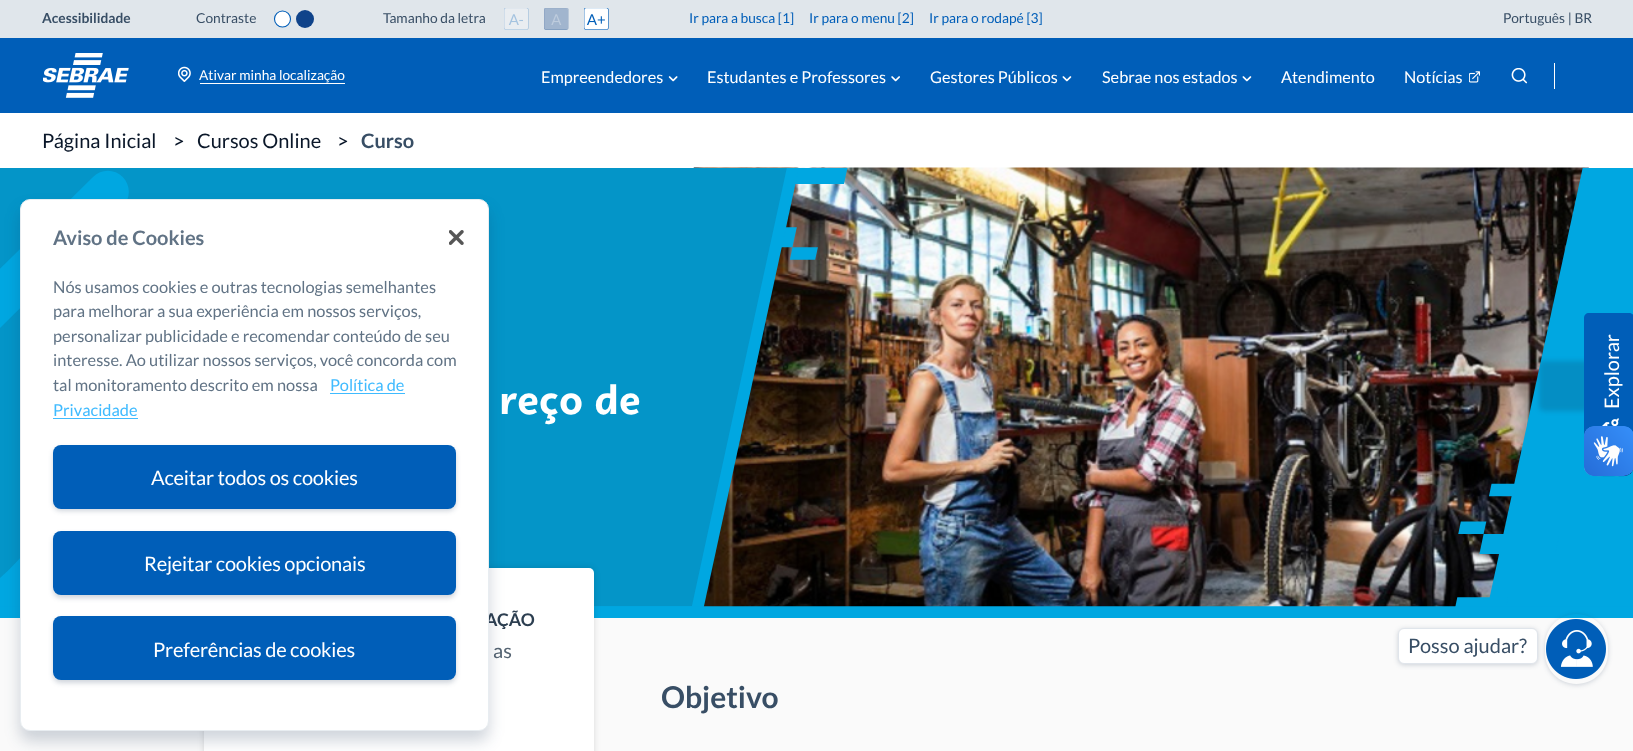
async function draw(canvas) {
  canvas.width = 1633
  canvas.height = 751
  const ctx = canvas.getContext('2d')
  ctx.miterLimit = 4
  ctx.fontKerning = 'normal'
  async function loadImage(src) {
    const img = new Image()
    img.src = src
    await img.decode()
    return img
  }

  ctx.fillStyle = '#fff'
  ctx.fillRect(0, 0, 1633, 751)
  ctx.fillStyle = '#005eb8'
  ctx.fillRect(0, 38, 1633, 75)
  ctx.fillStyle = '#e0e6eb'
  ctx.fillRect(0, 0, 1633, 38)
  ctx.font = 'bold 13.75px Lato'
  ctx.fillStyle = '#384e65'
  ctx.fillText('Acessibilidade', 42, 23)
  ctx.font = '13.75px Lato'
  ctx.fillText('Contraste', 196, 23)
  ctx.fillStyle = '#fff'
  ctx.beginPath()
  ctx.arc(282.5, 19, 8, 0, 2 * Math.PI)
  ctx.fill()
  ctx.strokeStyle = '#005eb8'
  ctx.lineWidth = 1.1
  ctx.stroke()
  ctx.fillStyle = '#0f438a'
  ctx.beginPath()
  ctx.arc(305, 19, 9, 0, 2 * Math.PI)
  ctx.fill()
  ctx.fillStyle = '#384e65'
  ctx.fillText('Tamanho da letra', 383, 23)
  ctx.drawImage(await loadImage('image0.png'), 504, 8, 25, 22)
  ctx.drawImage(await loadImage('image1.png'), 544, 8, 25, 22)
  ctx.drawImage(await loadImage('image2.png'), 584, 8, 25, 22)
  ctx.fillStyle = '#005eb8'
  ctx.fillText('Ir para a busca [1]', 689, 23)
  ctx.fillText('Ir para o menu [2]', 809, 23)
  ctx.fillText('Ir para o rodapé [3]', 929, 23)
  ctx.fillStyle = '#384e65'
  ctx.fillText('Português | BR', 1503, 23)
  ctx.drawImage(await loadImage('image3.png'), 43, 53, 86, 45)
  ctx.drawImage(await loadImage('image4.png'), 178, 66, 13, 16)
  ctx.fillStyle = '#fff'
  ctx.fillText('Ativar minha localização', 199, 80)
  ctx.fillRect(200, 83, 145, 1)
  ctx.drawImage(await loadImage('image5.png'), 668, 76, 10, 6)
  ctx.font = '16.25px Lato'
  ctx.fillText('Empreendedores', 541, 83)
  ctx.drawImage(await loadImage('image6.png'), 891, 76, 9, 6)
  ctx.fillText('Estudantes e Professores', 707, 83)
  ctx.drawImage(await loadImage('image7.png'), 1062, 76, 10, 6)
  ctx.fillText('Gestores Públicos', 930, 83)
  ctx.drawImage(await loadImage('image7.png'), 1242, 76, 10, 6)
  ctx.fillText('Sebrae nos estados', 1102, 83)
  ctx.fillText('Atendimento', 1281, 83)
  ctx.drawImage(await loadImage('image8.png'), 1469, 71, 11, 12)
  ctx.fillText('Notícias', 1404, 83)
  ctx.drawImage(await loadImage('image9.png'), 1511, 68, 17, 16)
  ctx.fillRect(1554, 63, 1, 26)
  ctx.font = '20px Lato'
  ctx.fillStyle = '#0a1729'
  ctx.fillText('Página Inicial', 42, 148)
  ctx.fillText('>', 173, 148)
  ctx.fillText('Cursos Online', 197, 148)
  ctx.fillText('>', 337, 148)
  ctx.font = 'bold 20px Lato'
  ctx.fillStyle = '#384e65'
  ctx.fillText('Curso', 361, 148)
  ctx.drawImage(await loadImage('image11.png'), 693, 167, 896, 440)
  ctx.drawImage(await loadImage('image10.png'), 0, 168, 1633, 442)
  ctx.font = 'bold 41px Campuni'
  ctx.fillStyle = '#fff'
  ctx.fillText('reço de', 499, 414)
  ctx.fillStyle = '#00a7e1'
  ctx.fillRect(0, 610, 1633, 8)
  ctx.fillStyle = '#fafafa'
  ctx.fillRect(0, 618, 1633, 133)
  ctx.fillStyle = '#00000021'
  ctx.filter = 'blur(3px)'
  ctx.beginPath()
  ctx.roundRect(204, 568, 390, 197, 5)
  ctx.fill()
  ctx.filter = 'none'
  ctx.fillStyle = '#fff'
  ctx.beginPath()
  ctx.roundRect(204, 568, 390, 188, 5)
  ctx.fill()
  ctx.font = 'bold 17.5px Lato'
  ctx.fillStyle = '#2c3e50'
  ctx.fillText('AÇÃO', 485, 626)
  ctx.font = '20px Lato'
  ctx.fillStyle = '#566573'
  ctx.fillText('as', 493, 658)
  ctx.font = 'bold 30px Lato'
  ctx.fillStyle = '#384e65'
  ctx.fillText('Objetivo', 661, 708)
  ctx.fillStyle = '#142e5233'
  ctx.filter = 'blur(2.5px)'
  ctx.beginPath()
  ctx.roundRect(1539, 361, 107, 50, 5)
  ctx.fill()
  ctx.filter = 'none'
  ctx.fillStyle = '#005eb8'
  ctx.beginPath()
  ctx.moveTo(1584, 448)
  ctx.lineTo(1584, 318)
  ctx.bezierCurveTo(1584, 315, 1586, 313, 1589, 313)
  ctx.lineTo(1629, 313)
  ctx.bezierCurveTo(1632, 313, 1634, 315, 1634, 318)
  ctx.lineTo(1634, 448)
  ctx.bezierCurveTo(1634, 451, 1632, 453, 1629, 453)
  ctx.lineTo(1589, 453)
  ctx.bezierCurveTo(1586, 453, 1584, 451, 1584, 448)
  ctx.closePath()
  ctx.fill()
  ctx.drawImage(await loadImage('image12.png'), 1602, 418, 17, 8)
  ctx.font = '20px Lato'
  ctx.fillStyle = '#fff'
  ctx.save()
  ctx.translate(1619, 409)
  ctx.rotate(-90 * Math.PI / 180)
  ctx.fillText('Explorar', 0, 0)
  ctx.restore()
  ctx.fillStyle = '#142e5233'
  ctx.filter = 'blur(7.5px)'
  ctx.beginPath()
  ctx.roundRect(20, 209, 469, 532, 10)
  ctx.fill()
  ctx.filter = 'none'
  ctx.fillStyle = '#fff'
  ctx.beginPath()
  ctx.roundRect(20.5, 199.5, 468, 531, 9.5)
  ctx.fill()
  ctx.strokeStyle = '#e8edf1'
  ctx.lineWidth = 1
  ctx.stroke()
  ctx.font = 'bold 20px Lato'
  ctx.fillStyle = '#617385'
  ctx.fillText('Aviso de Cookies', 53, 245)
  ctx.font = '16.4px Lato'
  ctx.fillText('Nós usamos cookies e outras tecnologias semelhantes', 53, 293)
  ctx.fillText('para melhorar a sua experiência em nossos serviços,', 53, 317)
  ctx.fillText('personalizar publicidade e recomendar conteúdo de seu', 53, 342)
  ctx.fillText('interesse. Ao utilizar nossos serviços, você concorda com', 53, 366)
  ctx.fillText('tal monitoramento descrito em nossa', 53, 391)
  ctx.fillStyle = '#40bbff'
  ctx.fillText('Política de', 330, 391)
  ctx.fillRect(330, 393, 75, 1)
  ctx.fillText('Privacidade', 53, 416)
  ctx.fillRect(53, 418, 85, 1)
  ctx.drawImage(await loadImage('image13.png'), 449, 230, 15, 15)
  ctx.fillStyle = '#142e5233'
  ctx.filter = 'blur(2.5px)'
  ctx.beginPath()
  ctx.roundRect(53, 448, 403, 63, 8)
  ctx.fill()
  ctx.filter = 'none'
  ctx.fillStyle = '#005eb8'
  ctx.beginPath()
  ctx.roundRect(53, 445, 403, 64, 8)
  ctx.fill()
  ctx.letterSpacing = '-0.2px'
  ctx.font = '20px Lato'
  ctx.fillStyle = '#fff'
  ctx.fillText('Aceitar todos os cookies', 151, 485)
  ctx.fillStyle = '#142e5233'
  ctx.filter = 'blur(2.5px)'
  ctx.beginPath()
  ctx.roundRect(53, 534, 403, 64, 8)
  ctx.fill()
  ctx.filter = 'none'
  ctx.fillStyle = '#005eb8'
  ctx.beginPath()
  ctx.roundRect(53, 531, 403, 64, 8)
  ctx.fill()
  ctx.fillStyle = '#fff'
  ctx.fillText('Rejeitar cookies opcionais', 144, 571)
  ctx.fillStyle = '#142e5233'
  ctx.filter = 'blur(2.5px)'
  ctx.beginPath()
  ctx.roundRect(53, 619, 403, 64, 8)
  ctx.fill()
  ctx.filter = 'none'
  ctx.fillStyle = '#005eb8'
  ctx.beginPath()
  ctx.roundRect(53, 616, 403, 64, 8)
  ctx.fill()
  ctx.fillStyle = '#fff'
  ctx.fillText('Preferências de cookies', 153, 657)
  ctx.drawImage(await loadImage('image14.png'), 1584, 426, 49, 51)
  ctx.drawImage(await loadImage('image15.png'), 1584, 426, 49, 50)
  ctx.save()
  ctx.beginPath()
  ctx.moveTo(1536, 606)
  ctx.lineTo(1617, 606)
  ctx.lineTo(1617, 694)
  ctx.lineTo(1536, 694)
  ctx.closePath()
  ctx.moveTo(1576.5, 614)
  ctx.bezierCurveTo(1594, 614, 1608, 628, 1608, 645.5)
  ctx.lineTo(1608, 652.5)
  ctx.bezierCurveTo(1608, 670, 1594, 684, 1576.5, 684)
  ctx.bezierCurveTo(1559, 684, 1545, 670, 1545, 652.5)
  ctx.lineTo(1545, 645.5)
  ctx.bezierCurveTo(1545, 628, 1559, 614, 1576.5, 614)
  ctx.closePath()
  ctx.clip('evenodd')
  ctx.fillStyle = '#142e5233'
  ctx.filter = 'blur(2.5px)'
  ctx.beginPath()
  ctx.roundRect(1545, 615, 63, 70, 31.5)
  ctx.fill()
  ctx.filter = 'none'
  ctx.restore()
  ctx.drawImage(await loadImage('image16.png'), 1546, 619, 60, 60)
  ctx.fillStyle = '#142e5233'
  ctx.filter = 'blur(2.5px)'
  ctx.beginPath()
  ctx.roundRect(1398, 629, 140, 36, 6)
  ctx.fill()
  ctx.filter = 'none'
  ctx.fillStyle = '#fff'
  ctx.beginPath()
  ctx.roundRect(1398.5, 628.5, 139, 35, 5.5)
  ctx.fill()
  ctx.strokeStyle = '#e0e5eb'
  ctx.stroke()
  ctx.letterSpacing = '0px'
  ctx.fillStyle = '#384e65'
  ctx.fillText('Posso ajudar?', 1408, 653)
}

draw(document.querySelector('canvas'))
